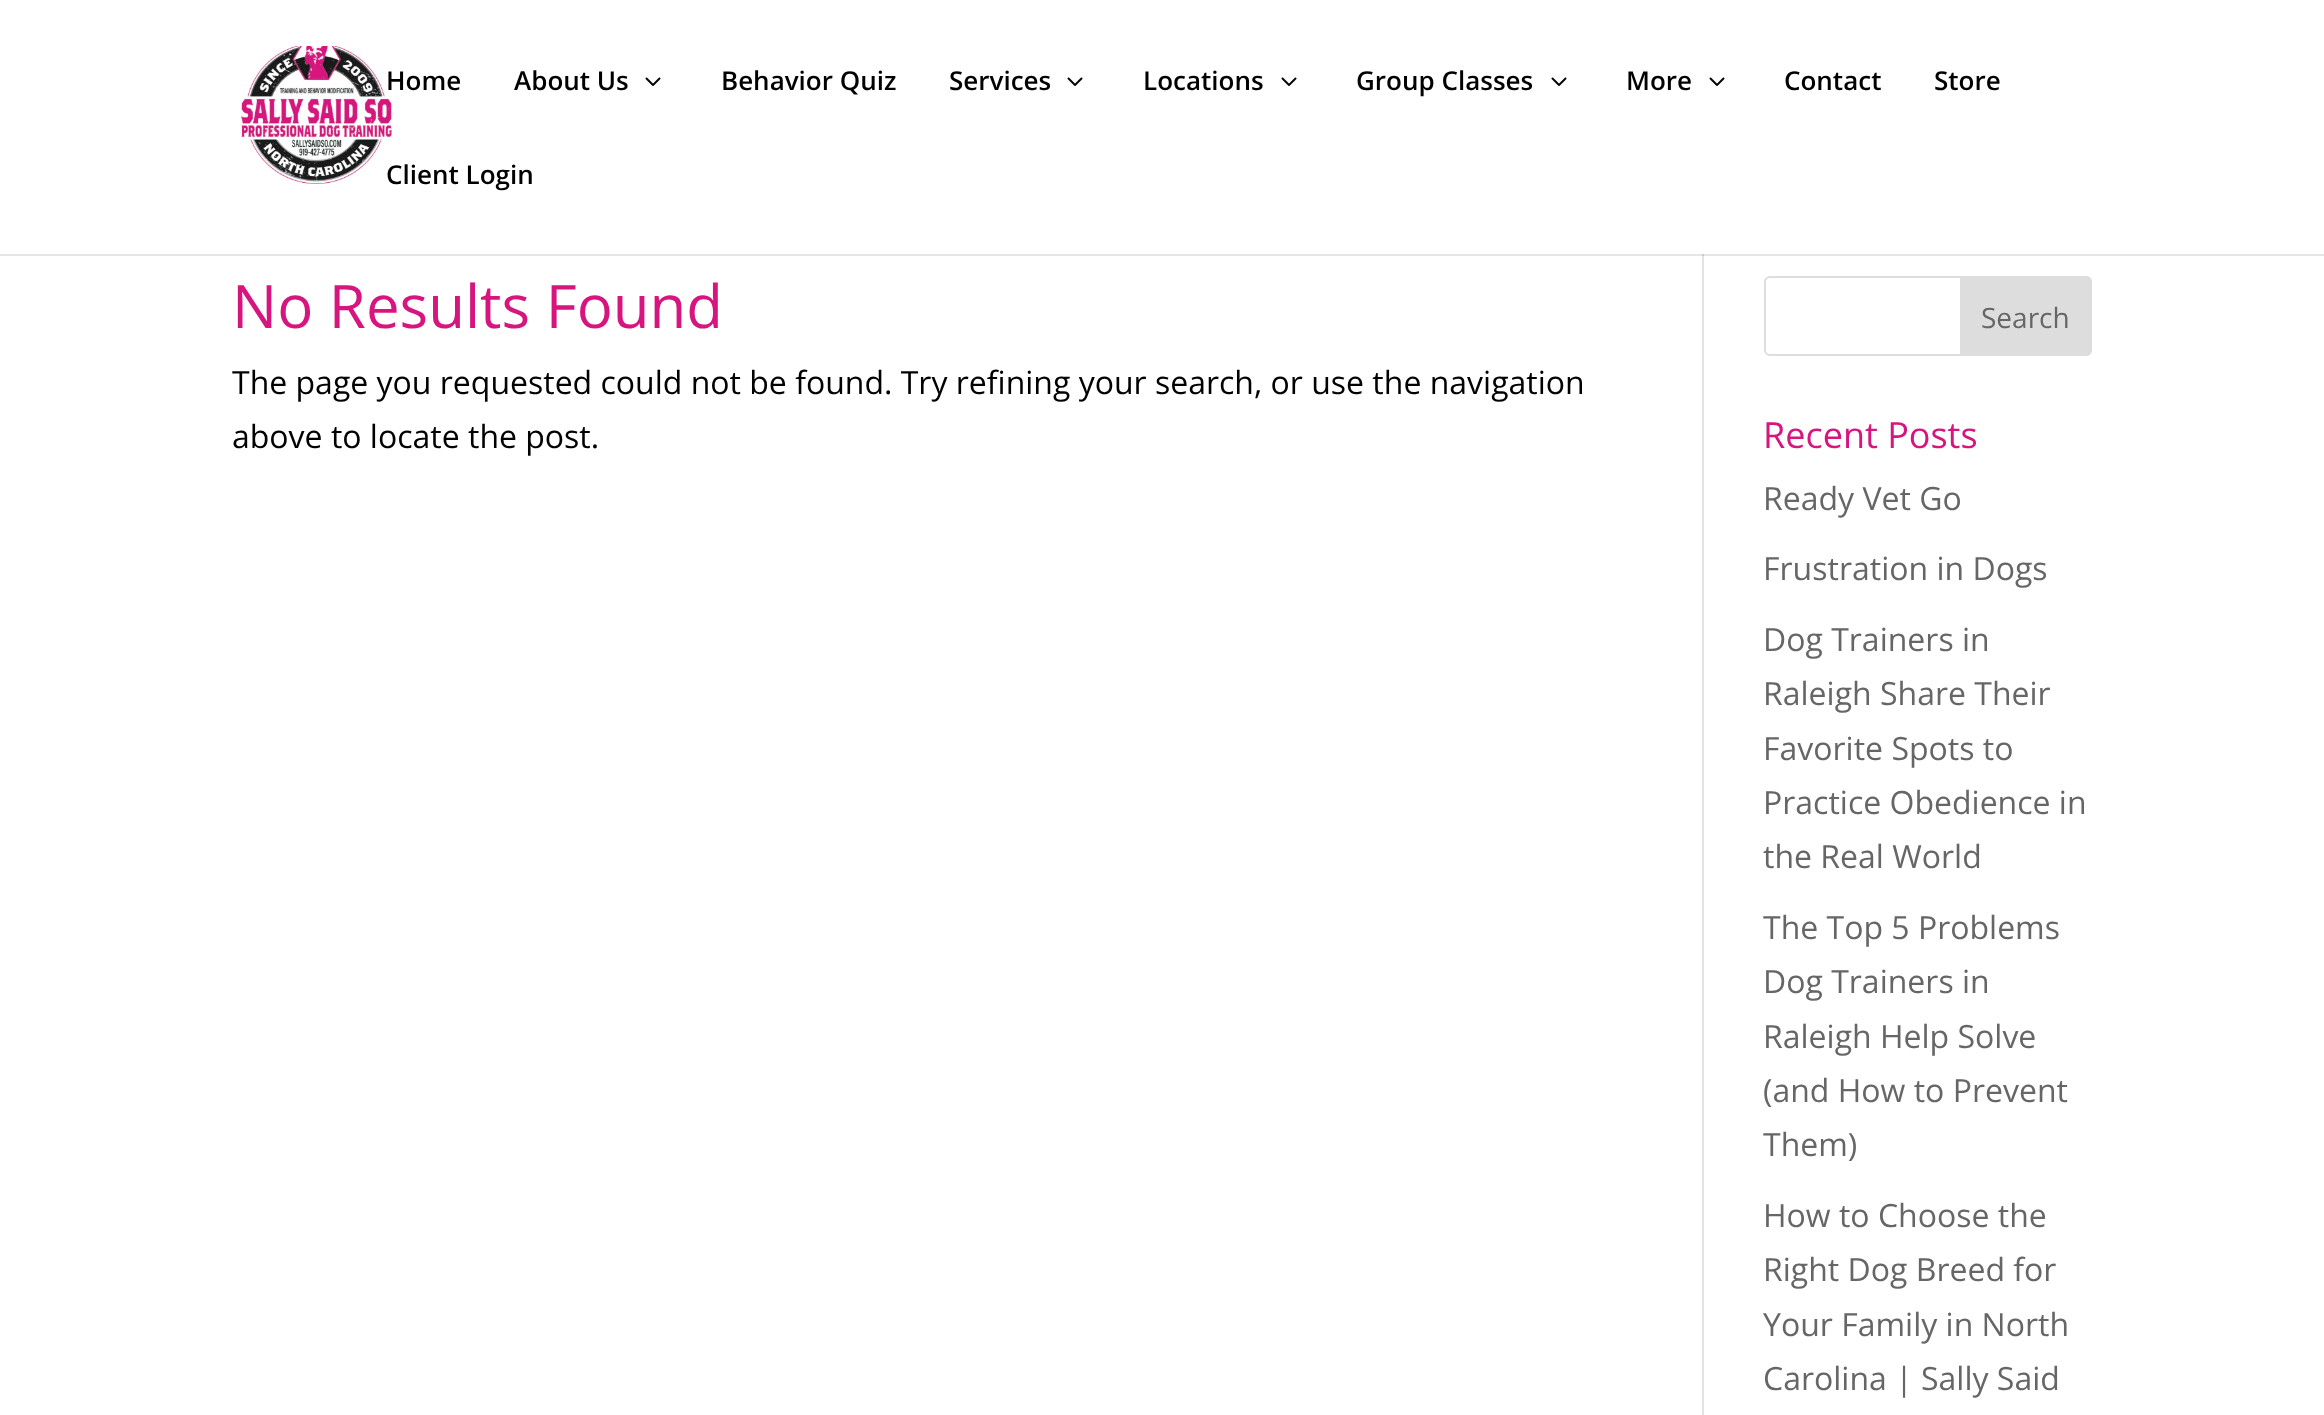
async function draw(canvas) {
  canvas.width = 2324
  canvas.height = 1415
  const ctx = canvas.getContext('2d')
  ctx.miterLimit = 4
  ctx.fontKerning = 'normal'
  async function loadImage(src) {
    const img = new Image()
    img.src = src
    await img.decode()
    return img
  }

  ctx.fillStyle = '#fff'
  ctx.fillRect(0, 0, 2324, 1415)
  ctx.drawImage(await loadImage('image0.png'), 240, 46, 152, 138)
  ctx.font = '600 26px Open Sans'
  ctx.fillStyle = '#000'
  ctx.fillText('Home', 386, 90)
  ctx.fillText('About Us', 514, 90)
  ctx.drawImage(await loadImage('image1.png'), 645, 77, 16, 9)
  ctx.fillText('Behavior Quiz', 721, 90)
  ctx.fillText('Services', 949, 90)
  ctx.drawImage(await loadImage('image1.png'), 1067, 77, 16, 9)
  ctx.fillText('Locations', 1143, 90)
  ctx.drawImage(await loadImage('image1.png'), 1281, 77, 16, 9)
  ctx.fillText('Group Classes', 1356, 90)
  ctx.drawImage(await loadImage('image1.png'), 1551, 77, 16, 9)
  ctx.fillText('More', 1626, 90)
  ctx.drawImage(await loadImage('image1.png'), 1709, 77, 16, 9)
  ctx.fillText('Contact', 1784, 90)
  ctx.fillText('Store', 1934, 90)
  ctx.fillText('Client Login', 386, 184)
  ctx.fillStyle = '#e6e6e6'
  ctx.fillRect(0, 254, 2324, 2)
  ctx.fillStyle = '#e2e2e2'
  ctx.fillRect(1702, 256, 2, 1159)
  ctx.fillStyle = '#cbcbcb'
  ctx.fillRect(1702, 254, 2, 2)
  ctx.font = '60px Open Sans'
  ctx.fillStyle = '#d6157e'
  ctx.fillText('No Results Found', 232, 328)
  ctx.font = '32px Open Sans'
  ctx.fillStyle = '#000'
  ctx.fillText('The page you requested could not be found. Try refining your search, or use the navigation', 232, 394)
  ctx.fillText('above to locate the post.', 232, 448)
  ctx.beginPath()
  ctx.roundRect(1765, 277, 326, 78, 5)
  ctx.strokeStyle = '#ddd'
  ctx.lineWidth = 2
  ctx.stroke()
  ctx.fillStyle = '#ddd'
  ctx.beginPath()
  ctx.roundRect(1961, 277, 130, 78, [0, 5, 5, 0])
  ctx.fill()
  ctx.stroke()
  ctx.font = '28px Open Sans'
  ctx.fillStyle = '#666'
  ctx.fillText('Search', 1981, 328)
  ctx.font = '36px Open Sans'
  ctx.fillStyle = '#d6157e'
  ctx.fillText('Recent Posts', 1763, 448)
  ctx.font = '32px Open Sans'
  ctx.fillStyle = '#666'
  ctx.fillText('Ready Vet Go', 1763, 510)
  ctx.fillText('Frustration in Dogs', 1763, 580)
  ctx.fillText('Dog Trainers in', 1763, 651)
  ctx.fillText('Raleigh Share Their', 1763, 705)
  ctx.fillText('Favorite Spots to', 1763, 760)
  ctx.fillText('Practice Obedience in', 1763, 814)
  ctx.fillText('the Real World', 1763, 868)
  ctx.fillText('The Top 5 Problems', 1763, 939)
  ctx.fillText('Dog Trainers in', 1763, 993)
  ctx.fillText('Raleigh Help Solve', 1763, 1048)
  ctx.fillText('(and How to Prevent', 1763, 1102)
  ctx.fillText('Them)', 1763, 1156)
  ctx.fillText('How to Choose the', 1763, 1227)
  ctx.fillText('Right Dog Breed for', 1763, 1281)
  ctx.fillText('Your Family in North', 1763, 1336)
  ctx.fillText('Carolina | Sally Said', 1763, 1390)
}

draw(document.querySelector('canvas'))
